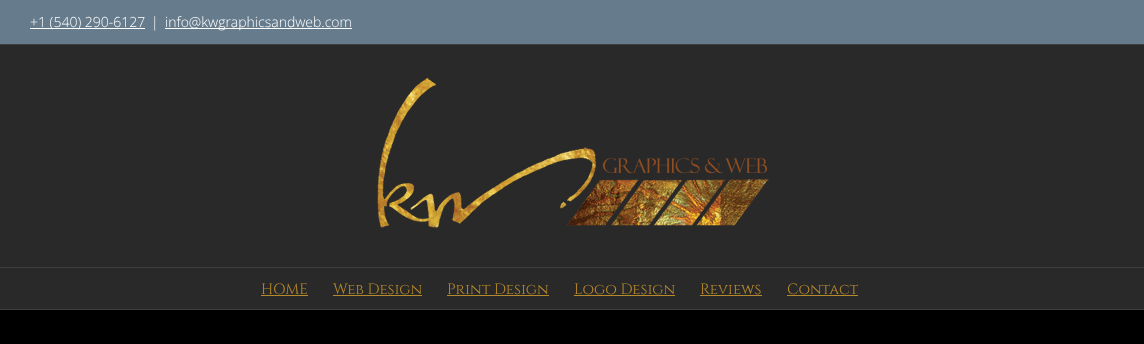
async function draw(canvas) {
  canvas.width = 1144
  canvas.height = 344
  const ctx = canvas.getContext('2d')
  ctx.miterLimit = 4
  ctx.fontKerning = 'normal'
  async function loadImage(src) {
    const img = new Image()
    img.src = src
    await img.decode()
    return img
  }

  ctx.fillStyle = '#000'
  ctx.fillRect(0, 0, 1144, 344)
  ctx.fillStyle = '#667c8d'
  ctx.fillRect(0, 0, 1144, 44)
  ctx.fillStyle = '#3e3e3e'
  ctx.fillRect(0, 44, 1144, 1)
  ctx.fillStyle = '#fff'
  ctx.fillRect(30, 28, 115, 1)
  ctx.font = '300 14px Open Sans'
  ctx.fillText('+1 (540) 290-6127', 30, 27)
  ctx.fillText('|', 151, 27)
  ctx.fillRect(165, 28, 187, 1)
  ctx.fillText('info@kwgraphicsandweb.com', 165, 27)
  ctx.fillStyle = '#29292a'
  ctx.fillRect(0, 45, 1144, 222)
  ctx.fillStyle = '#3e3e3e'
  ctx.fillRect(0, 267, 1144, 1)
  ctx.drawImage(await loadImage('image0.png'), 377, 78, 392, 150)
  ctx.fillStyle = '#29292a'
  ctx.fillRect(0, 268, 1144, 41)
  ctx.fillStyle = '#3e3e3e'
  ctx.fillRect(0, 309, 1144, 1)
  ctx.font = '15px Cinzel'
  ctx.fillStyle = '#b6892b'
  ctx.fillText('HOME', 261, 294)
  ctx.fillRect(261, 295, 47, 1)
  ctx.fillText('Web Design', 333, 294)
  ctx.fillRect(333, 295, 89, 1)
  ctx.fillText('Print Design', 447, 294)
  ctx.fillRect(447, 295, 102, 1)
  ctx.fillText('Logo Design', 574, 294)
  ctx.fillRect(574, 295, 101, 1)
  ctx.fillText('Reviews', 700, 294)
  ctx.fillRect(700, 295, 62, 1)
  ctx.fillText('Contact', 787, 294)
  ctx.fillRect(787, 295, 71, 1)
}

draw(document.querySelector('canvas'))
